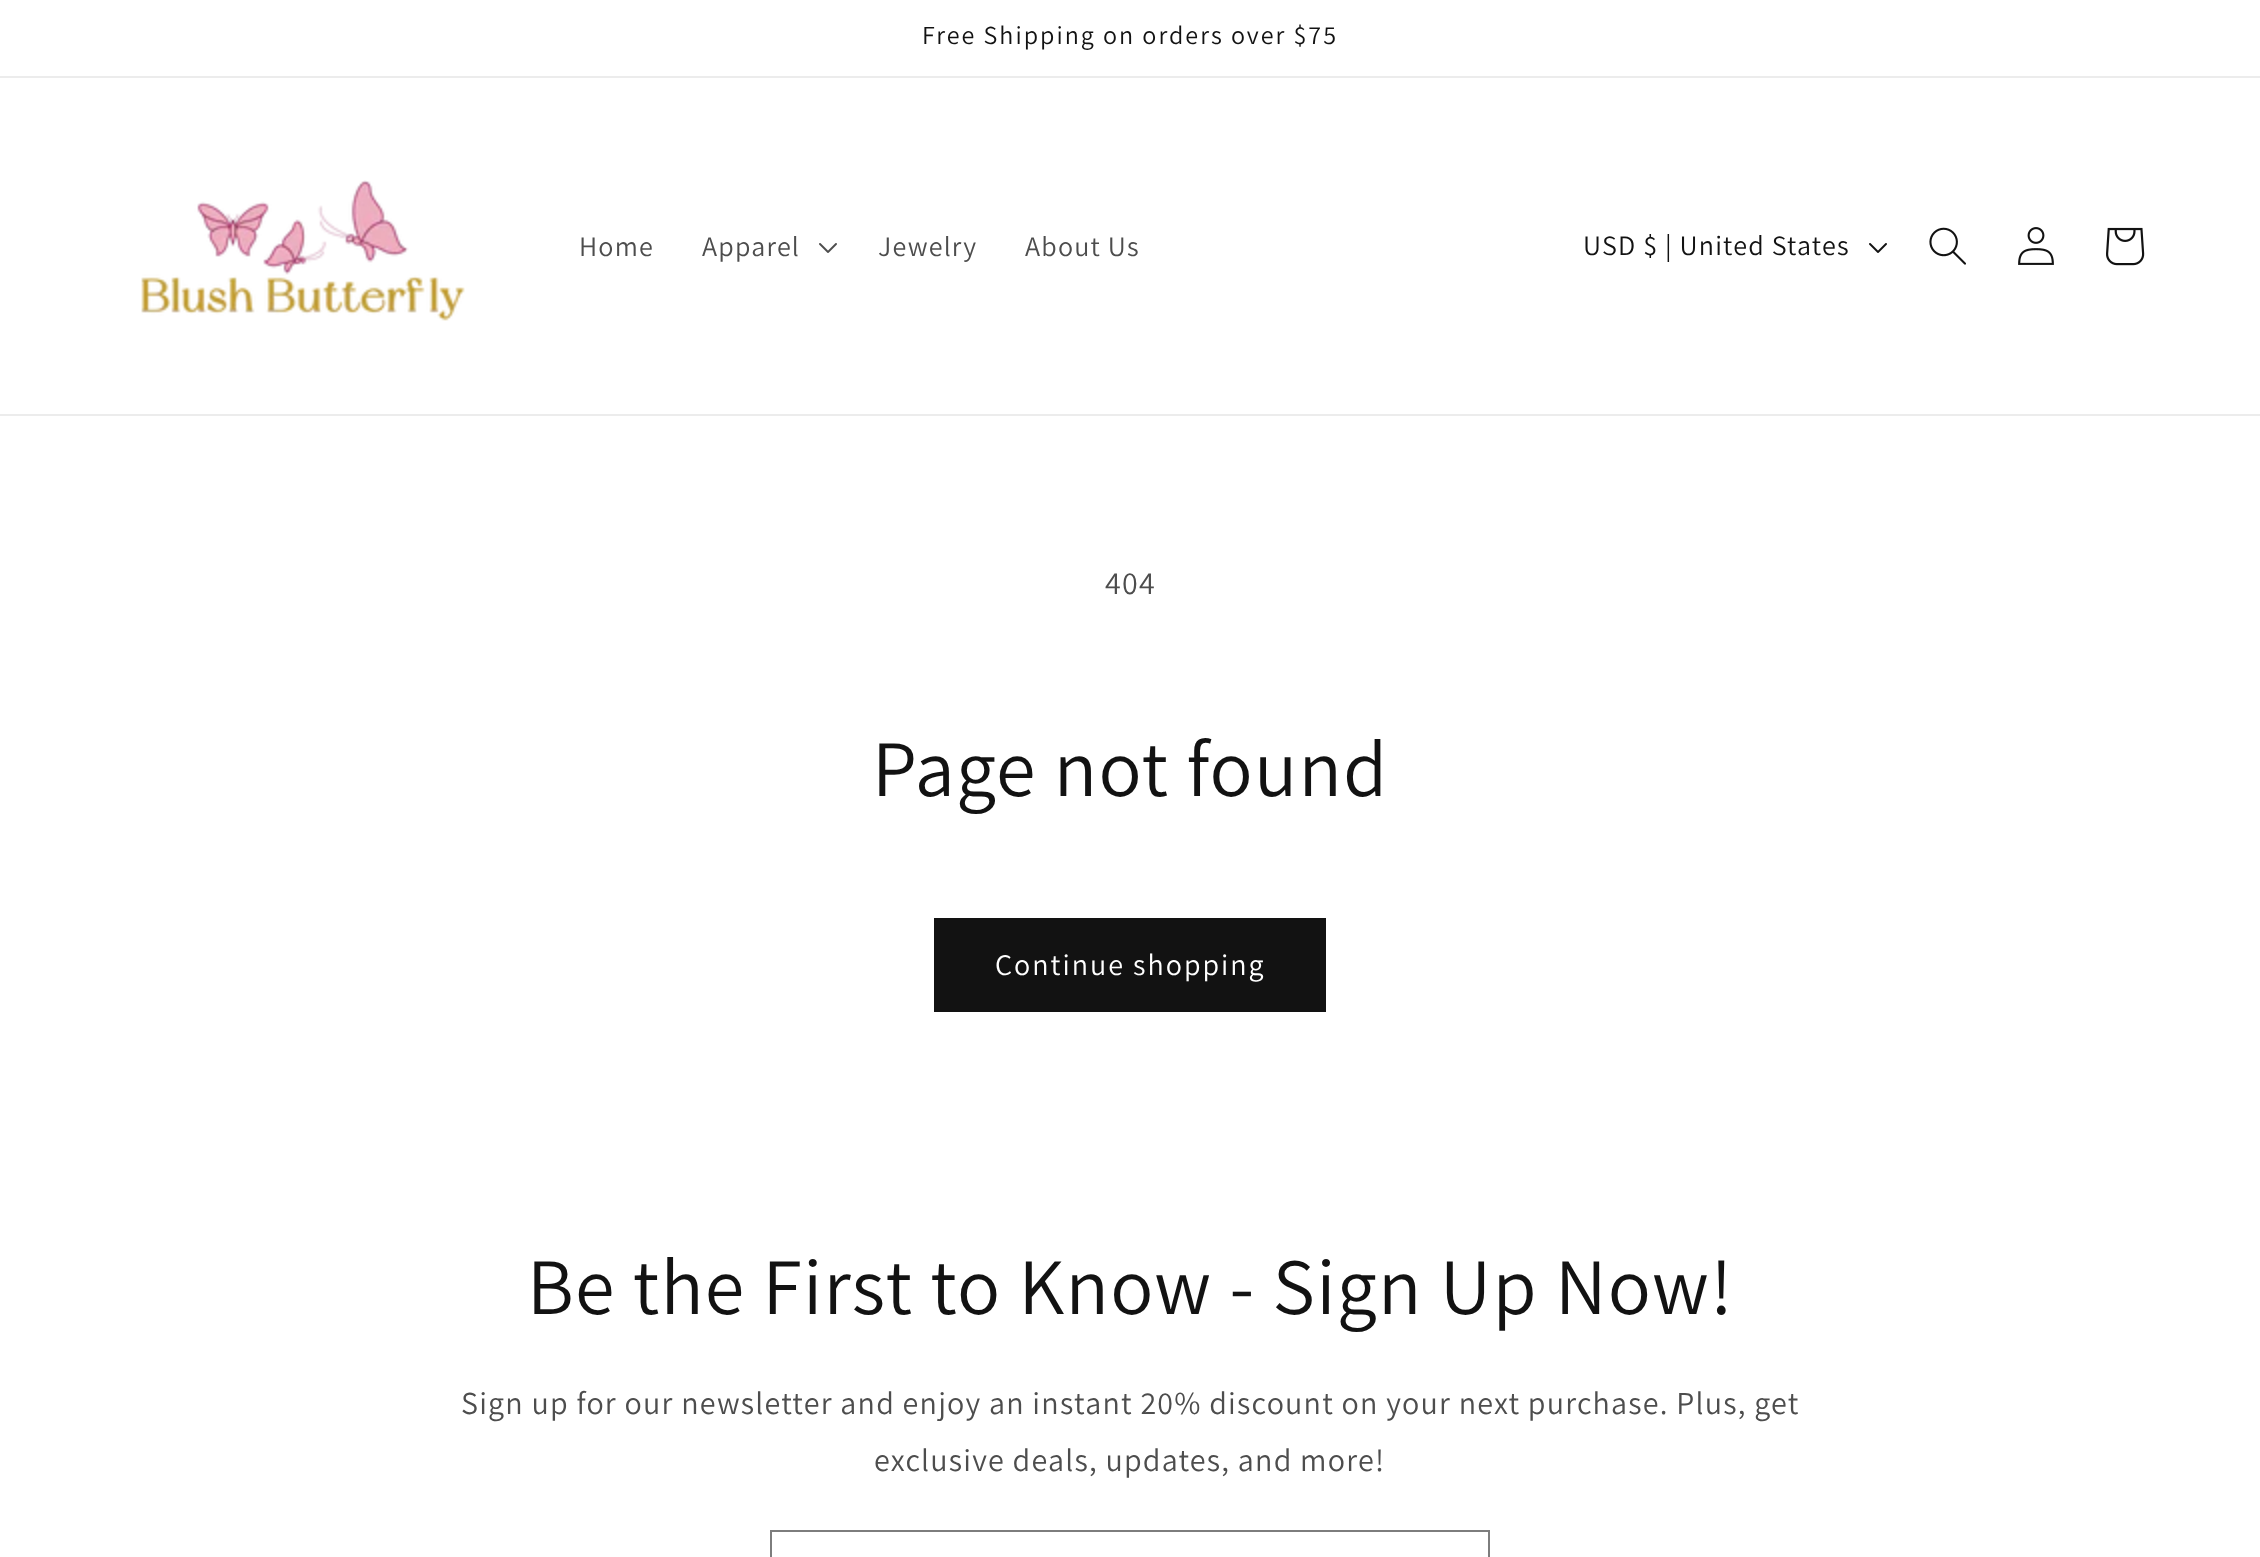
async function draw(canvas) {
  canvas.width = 2260
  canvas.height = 1557
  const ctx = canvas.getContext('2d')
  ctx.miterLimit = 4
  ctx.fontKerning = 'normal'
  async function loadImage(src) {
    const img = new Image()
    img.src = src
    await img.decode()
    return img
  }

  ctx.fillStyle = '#fff'
  ctx.fillRect(0, 0, 2260, 1557)
  ctx.fillStyle = '#ececec'
  ctx.fillRect(0, 76, 2260, 2)
  ctx.letterSpacing = '2px'
  ctx.font = '26px Assistant'
  ctx.fillStyle = '#121212'
  ctx.fillText('Free Shipping on orders over $75', 922, 44)
  ctx.fillStyle = '#ececec'
  ctx.fillRect(0, 414, 2260, 2)
  ctx.drawImage(await loadImage('image0.png'), 141, 180, 324, 141)
  ctx.letterSpacing = '1.2px'
  ctx.font = '28px Assistant'
  ctx.fillStyle = '#4d4d4d'
  ctx.fillText('Home', 579, 256)
  ctx.fillText('Apparel', 702, 256)
  ctx.drawImage(await loadImage('image1.png'), 819, 243, 18, 10)
  ctx.fillText('Jewelry', 878, 256)
  ctx.fillText('About Us', 1025, 256)
  ctx.fillStyle = '#121212'
  ctx.fillText('USD $ | United States', 1583, 255)
  ctx.drawImage(await loadImage('image2.png'), 1869, 243, 18, 10)
  ctx.drawImage(await loadImage('image3.png'), 1929, 227, 37, 38)
  ctx.drawImage(await loadImage('image4.png'), 2018, 227, 36, 38)
  ctx.drawImage(await loadImage('image5.png'), 2106, 227, 39, 39)
  ctx.font = '32px Assistant'
  ctx.fillStyle = '#4d4d4d'
  ctx.fillText('404', 1105, 594)
  ctx.font = '80px Assistant'
  ctx.fillStyle = '#121212'
  ctx.fillText('Page not found', 872, 796)
  ctx.fillRect(934, 918, 392, 94)
  ctx.letterSpacing = '2px'
  ctx.font = '30px Assistant'
  ctx.fillStyle = '#fff'
  ctx.fillText('Continue shopping', 995, 975)
  ctx.letterSpacing = '1.2px'
  ctx.font = '80px Assistant'
  ctx.fillStyle = '#121212'
  ctx.fillText('Be the First to Know - Sign Up Now!', 527, 1314)
  ctx.font = '32px Assistant'
  ctx.fillStyle = '#4d4d4d'
  ctx.fillText('Sign up for our newsletter and enjoy an instant 20% discount on your next purchase. Plus, get', 461, 1414)
  ctx.fillText('exclusive deals, updates, and more!', 874, 1471)
  ctx.strokeStyle = '#7d7d7d'
  ctx.lineWidth = 2
  ctx.strokeRect(771, 1531, 718, 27)
}

draw(document.querySelector('canvas'))
